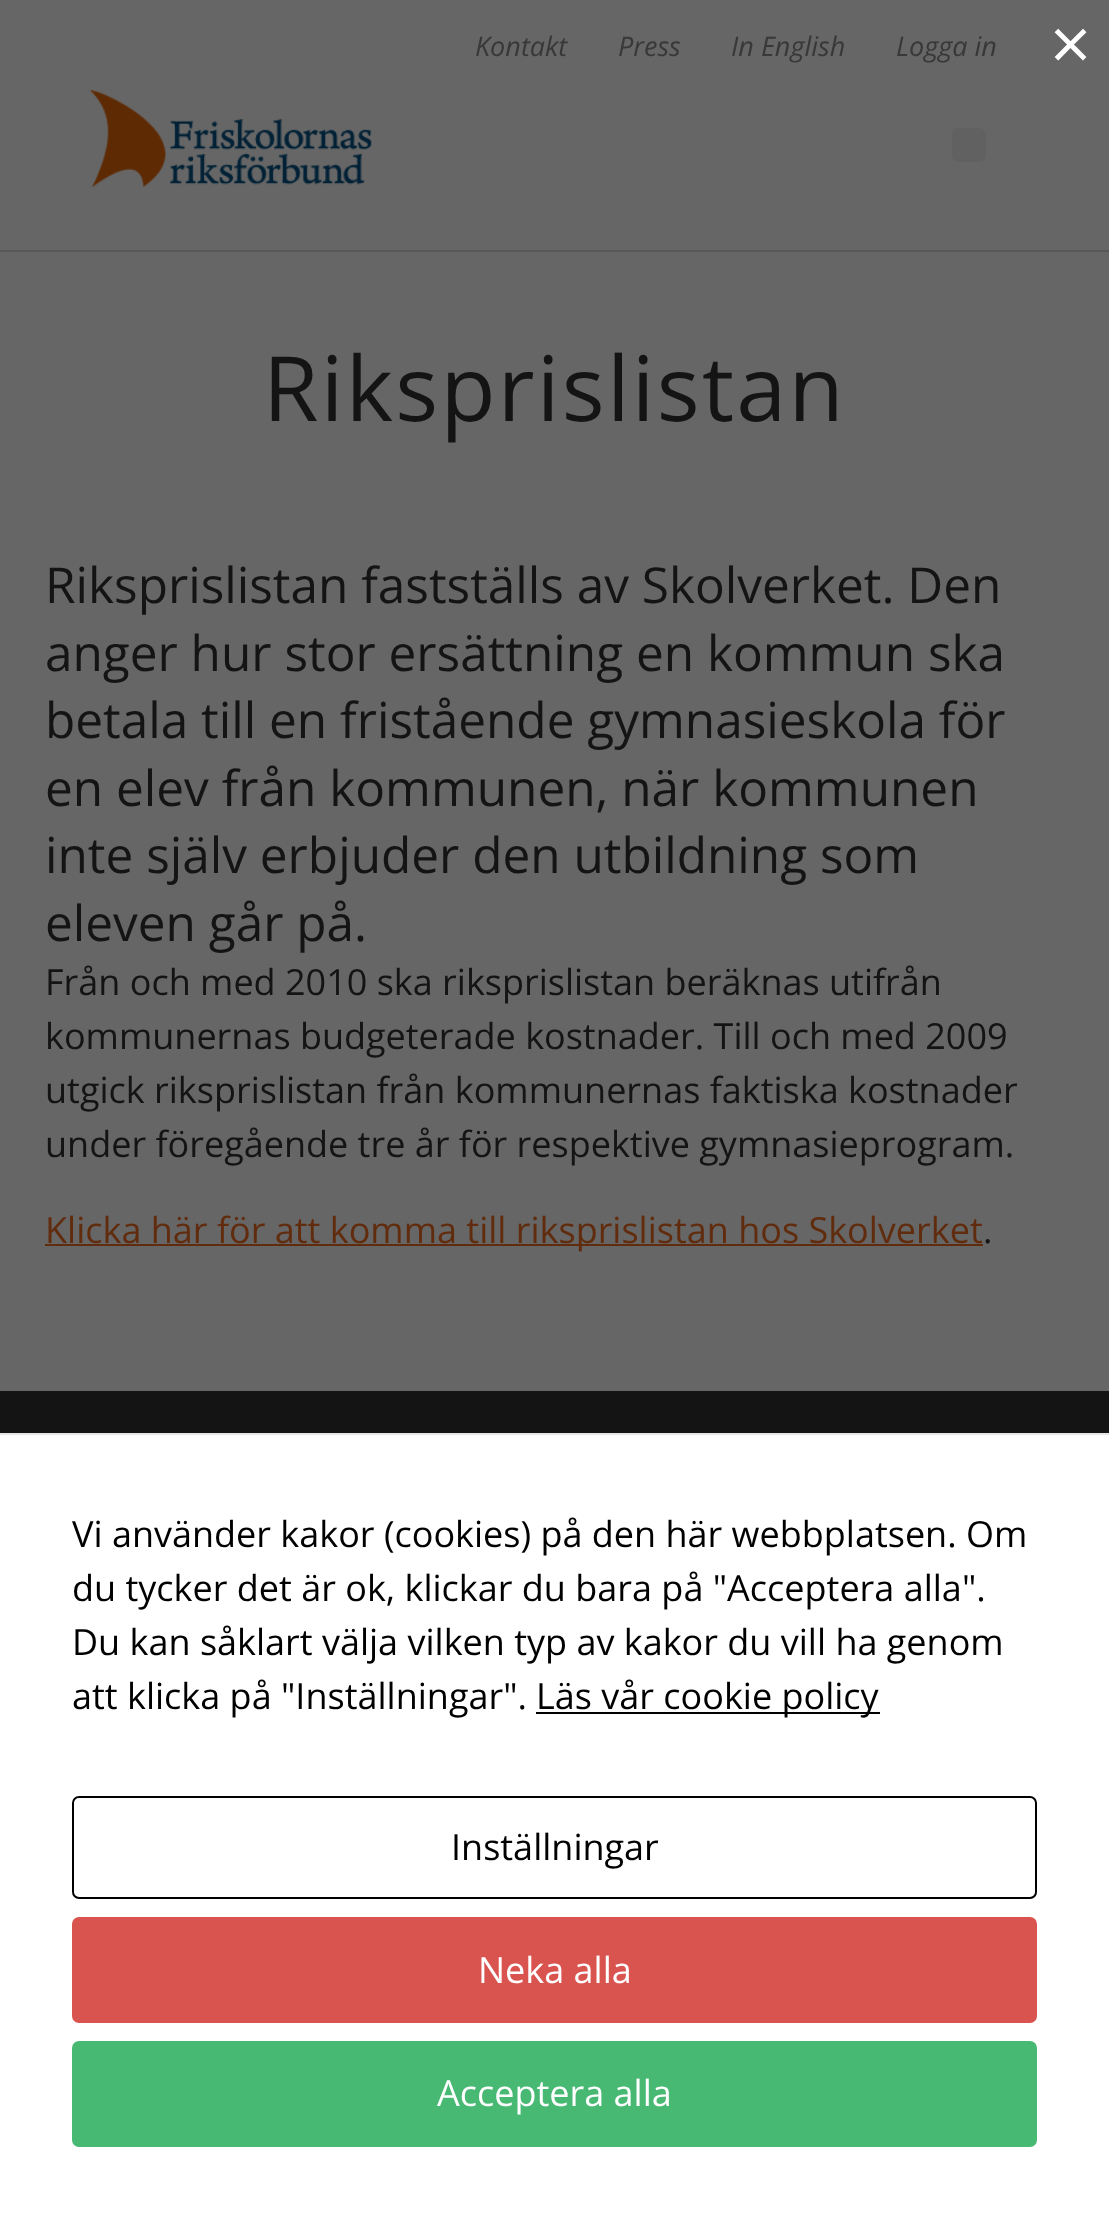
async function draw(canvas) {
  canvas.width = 1109
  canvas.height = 2218
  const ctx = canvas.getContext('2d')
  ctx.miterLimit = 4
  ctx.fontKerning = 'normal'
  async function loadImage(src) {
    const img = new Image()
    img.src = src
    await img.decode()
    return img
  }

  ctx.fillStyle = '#666'
  ctx.fillRect(0, 0, 1109, 2218)
  ctx.fillStyle = '#141414'
  ctx.fillRect(0, 1391, 1109, 42)
  ctx.font = '72px Open Sans'
  ctx.fillStyle = '#fff'
  ctx.fillText('×', 1050, 70)
  ctx.fillRect(0, 1435, 1109, 783)
  ctx.fillStyle = '#e6e6e6'
  ctx.fillRect(0, 1433, 1109, 2)
  ctx.font = '36px Open Sans'
  ctx.fillStyle = '#000'
  ctx.fillText('Vi använder kakor (cookies) på den här webbplatsen. Om', 72, 1547)
  ctx.fillText('du tycker det är ok, klickar du bara på "Acceptera alla".', 72, 1601)
  ctx.fillText('Du kan såklart välja vilken typ av kakor du vill ha genom', 72, 1655)
  ctx.fillText('att klicka på "Inställningar".', 72, 1709)
  ctx.fillRect(536, 1712, 344, 2)
  ctx.fillText('Läs vår cookie policy', 536, 1709)
  ctx.beginPath()
  ctx.roundRect(73, 1797, 963, 101, 6)
  ctx.strokeStyle = '#000'
  ctx.lineWidth = 2
  ctx.stroke()
  ctx.fillText('Inställningar', 451, 1860)
  ctx.fillStyle = '#d9534f'
  ctx.beginPath()
  ctx.roundRect(73, 1918, 963, 104, 6)
  ctx.fill()
  ctx.strokeStyle = '#d9534f'
  ctx.stroke()
  ctx.fillStyle = '#fff'
  ctx.fillText('Neka alla', 478, 1983)
  ctx.fillStyle = '#47b973'
  ctx.beginPath()
  ctx.roundRect(73, 2042, 963, 104, 6)
  ctx.fill()
  ctx.strokeStyle = '#47b973'
  ctx.stroke()
  ctx.fillStyle = '#fff'
  ctx.fillText('Acceptera alla', 437, 2106)
  ctx.fillStyle = '#585858'
  ctx.fillRect(0, 250, 1109, 2)
  ctx.font = 'italic 27px Open Sans'
  ctx.fillStyle = '#383838'
  ctx.fillText('Kontakt', 475, 56)
  ctx.fillText('Press', 618, 56)
  ctx.fillText('In English', 731, 56)
  ctx.fillText('Logga in', 896, 56)
  ctx.drawImage(await loadImage('image0.png'), 90, 90, 282, 97)
  ctx.fillStyle = '#616161'
  ctx.beginPath()
  ctx.roundRect(952, 128, 34, 34, 7)
  ctx.fill()
  ctx.letterSpacing = '2.25px'
  ctx.font = '90px Open Sans'
  ctx.fillStyle = '#141414'
  ctx.fillText('Riksprislistan', 263, 421)
  ctx.letterSpacing = '0px'
  ctx.font = '49.5px Open Sans'
  ctx.fillText('Riksprislistan fastställs av Skolverket. Den', 45, 603)
  ctx.fillText('anger hur stor ersättning en kommun ska', 45, 671)
  ctx.fillText('betala till en fristående gymnasieskola för', 45, 738)
  ctx.fillText('en elev från kommunen, när kommunen', 45, 806)
  ctx.fillText('inte själv erbjuder den utbildning som', 45, 873)
  ctx.fillText('eleven går på.', 45, 941)
  ctx.font = '36px Open Sans'
  ctx.fillText('Från och med 2010 ska riksprislistan beräknas utifrån', 45, 995)
  ctx.fillText('kommunernas budgeterade kostnader. Till och med 2009', 45, 1049)
  ctx.fillText('utgick riksprislistan från kommunernas faktiska kostnader', 45, 1103)
  ctx.fillText('under föregående tre år för respektive gymnasieprogram.', 45, 1157)
  ctx.fillStyle = '#612c0d'
  ctx.fillRect(45, 1244, 938, 2)
  ctx.fillText('Klicka här för att komma till riksprislistan hos Skolverket', 45, 1243)
  ctx.fillStyle = '#141414'
  ctx.fillText('.', 983, 1243)
}

draw(document.querySelector('canvas'))
